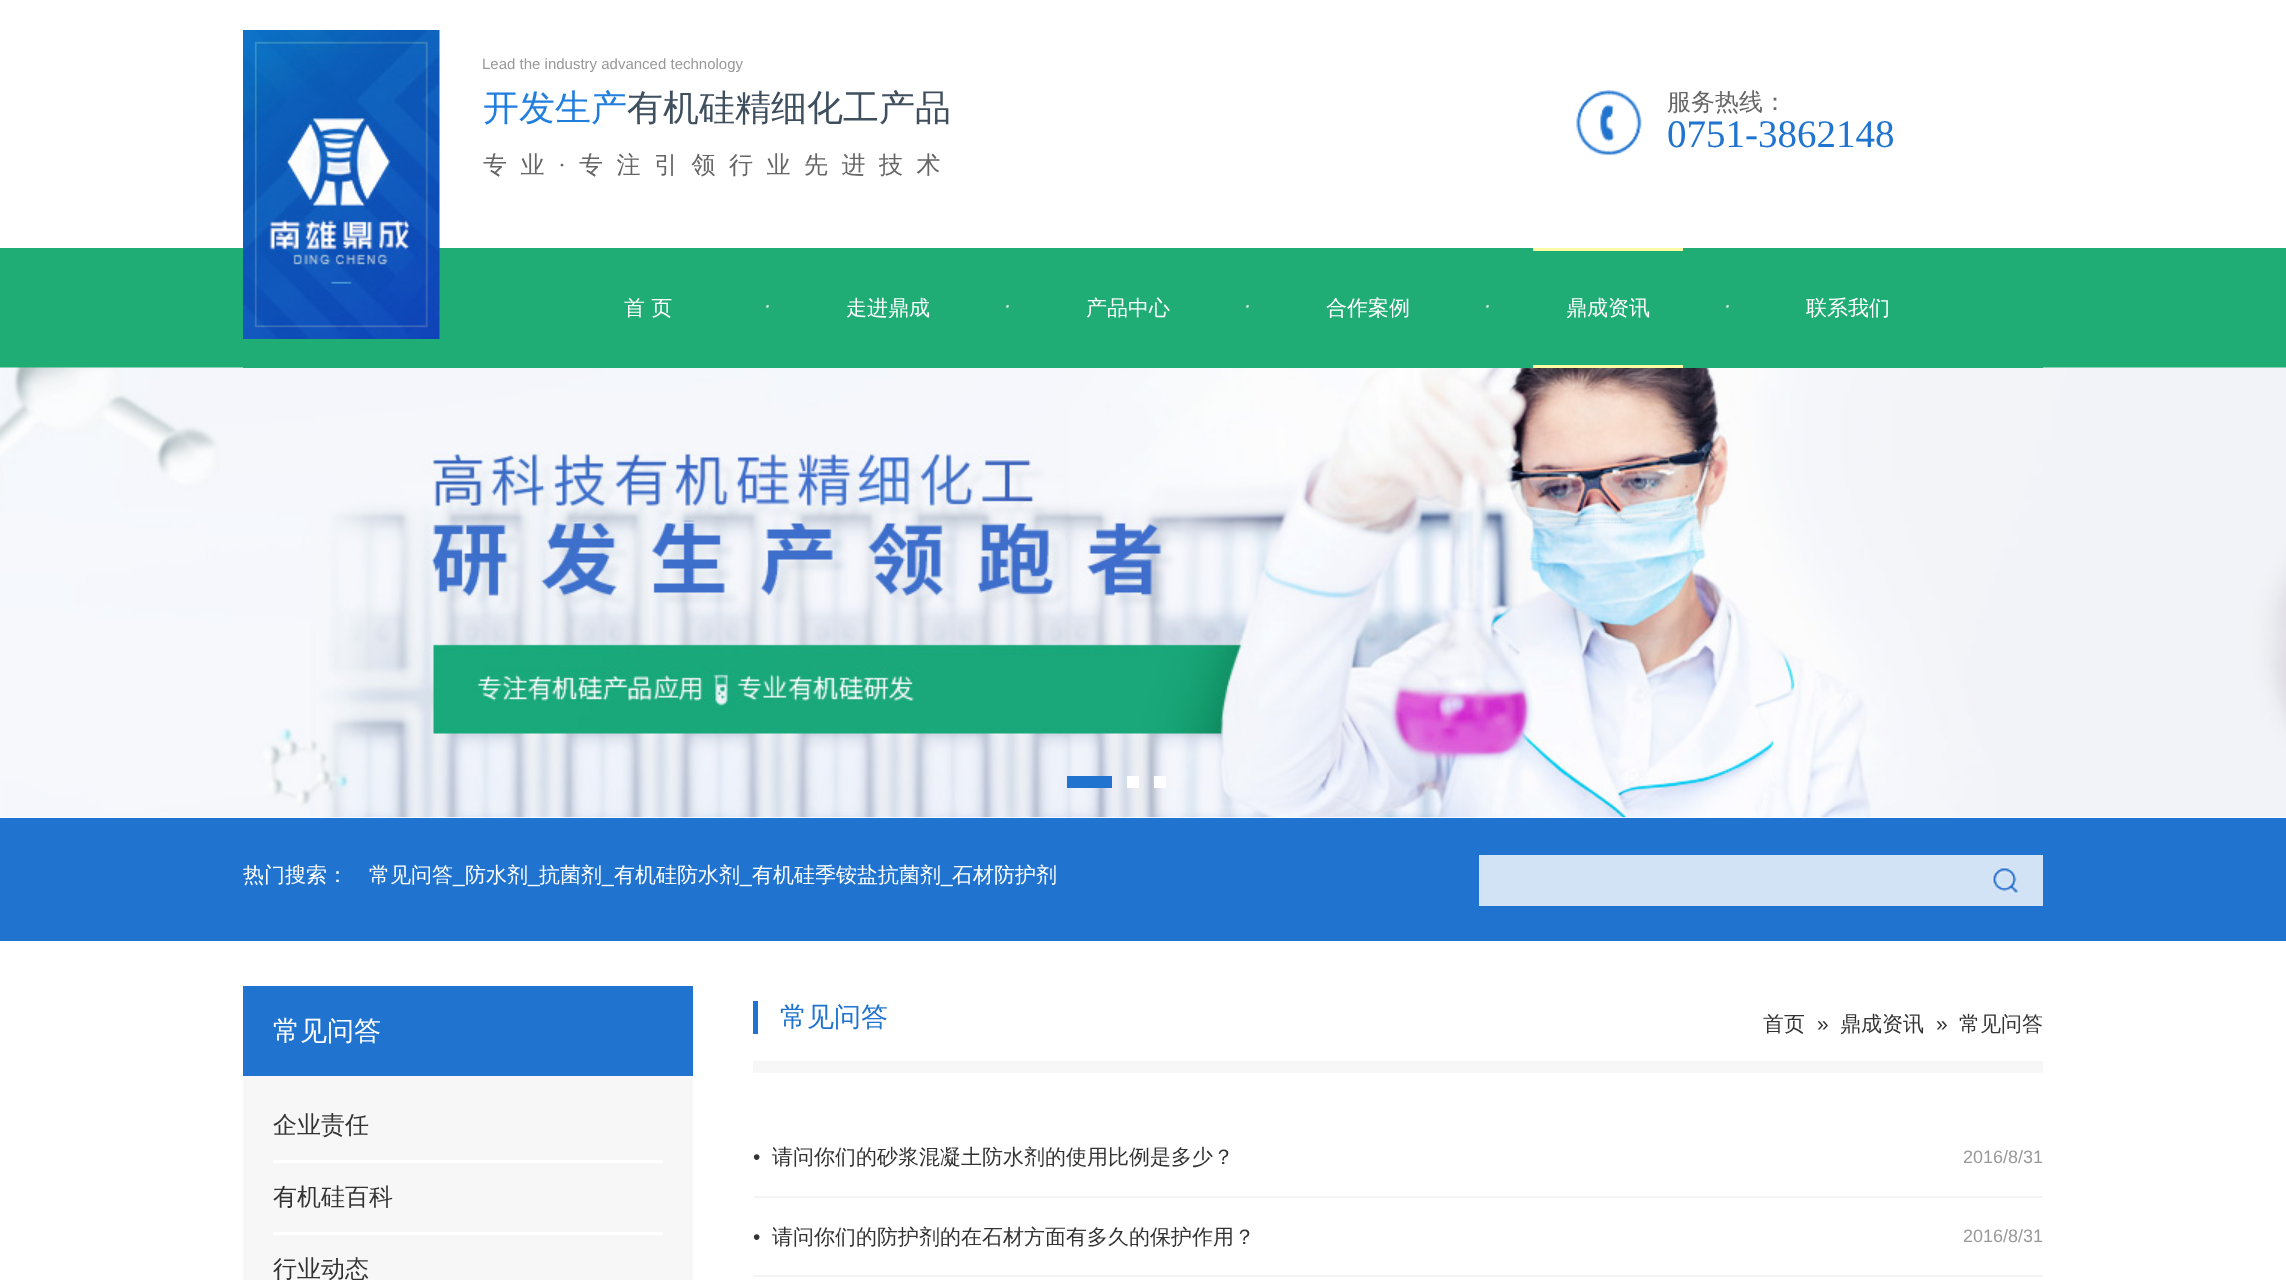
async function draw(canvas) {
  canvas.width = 2286
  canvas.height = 1280
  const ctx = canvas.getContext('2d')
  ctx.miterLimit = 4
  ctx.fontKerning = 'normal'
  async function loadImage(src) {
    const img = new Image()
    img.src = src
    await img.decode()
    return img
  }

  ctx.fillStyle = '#fff'
  ctx.fillRect(0, 0, 2286, 1280)
  ctx.fillStyle = '#1fac75'
  ctx.fillRect(0, 248, 2286, 120)
  ctx.drawImage(await loadImage('image0.png'), 243, 30, 197, 309)
  ctx.font = '15px Liberation Sans'
  ctx.fillStyle = '#999'
  ctx.fillText('Lead the industry advanced technology', 482, 69)
  ctx.font = '500 36px WenQuanYi Zen Hei'
  ctx.fillStyle = '#227edd'
  ctx.fillText('开发生产', 483, 120)
  ctx.fillStyle = '#3f4f5e'
  ctx.fillText('有机硅精细化工产品', 627, 120)
  ctx.letterSpacing = '13.5px'
  ctx.font = '500 24px WenQuanYi Zen Hei'
  ctx.fillStyle = '#666'
  ctx.fillText('专业', 483, 173)
  ctx.font = '24px Liberation Serif'
  ctx.fillText('·', 558, 173)
  ctx.font = '500 24px WenQuanYi Zen Hei'
  ctx.fillText('专注引领行业先进技术', 579, 173)
  ctx.drawImage(await loadImage('image1.png'), 1576, 90, 66, 65)
  ctx.letterSpacing = '0px'
  ctx.fillText('服务热线：', 1667, 110)
  ctx.font = '39px Liberation Serif'
  ctx.fillStyle = '#2074cf'
  ctx.fillText('0751-3862148', 1667, 147)
  ctx.drawImage(await loadImage('image2.png'), 0, 367, 2286, 451)
  ctx.fillStyle = '#1fac75'
  ctx.fillRect(243, 367, 1800, 1)
  ctx.fillStyle = '#fffca3'
  ctx.fillRect(1533, 248, 150, 3)
  ctx.fillRect(1533, 365, 150, 3)
  ctx.font = '500 21px WenQuanYi Zen Hei'
  ctx.fillStyle = '#fff'
  ctx.fillText('首 页', 624, 315)
  ctx.font = 'italic 21px Liberation Sans'
  ctx.fillText('·', 764, 312)
  ctx.font = '500 21px WenQuanYi Zen Hei'
  ctx.fillText('走进鼎成', 846, 315)
  ctx.font = 'italic 21px Liberation Sans'
  ctx.fillText('·', 1004, 312)
  ctx.font = '500 21px WenQuanYi Zen Hei'
  ctx.fillText('产品中心', 1086, 315)
  ctx.font = 'italic 21px Liberation Sans'
  ctx.fillText('·', 1244, 312)
  ctx.font = '500 21px WenQuanYi Zen Hei'
  ctx.fillText('合作案例', 1326, 315)
  ctx.font = 'italic 21px Liberation Sans'
  ctx.fillText('·', 1484, 312)
  ctx.font = '500 21px WenQuanYi Zen Hei'
  ctx.fillText('鼎成资讯', 1566, 315)
  ctx.font = 'italic 21px Liberation Sans'
  ctx.fillText('·', 1724, 312)
  ctx.font = '500 21px WenQuanYi Zen Hei'
  ctx.fillText('联系我们', 1806, 315)
  ctx.fillStyle = '#2074cf'
  ctx.fillRect(1067, 776, 45, 12)
  ctx.fillStyle = '#fff'
  ctx.fillRect(1127, 776, 12, 12)
  ctx.fillRect(1154, 776, 12, 12)
  ctx.fillStyle = '#2074cf'
  ctx.fillRect(0, 818, 2286, 123)
  ctx.fillStyle = '#fff'
  ctx.fillText('热门搜索：', 243, 882)
  ctx.fillText('常见问答', 369, 882)
  ctx.fillText('防水剂', 465, 882)
  ctx.fillText('抗菌剂', 539, 882)
  ctx.fillText('有机硅防水剂', 614, 882)
  ctx.fillText('有机硅季铵盐抗菌剂', 752, 882)
  ctx.fillText('石材防护剂', 952, 882)
  ctx.font = '21px Liberation Sans'
  ctx.fillText('_', 453, 882)
  ctx.fillText('_', 528, 882)
  ctx.fillText('_', 602, 882)
  ctx.fillText('_', 740, 882)
  ctx.fillText('_', 941, 882)
  ctx.fillStyle = '#d2e3f5'
  ctx.fillRect(1479, 855, 564, 51)
  ctx.drawImage(await loadImage('image3.png'), 1992, 867, 27, 29)
  ctx.fillStyle = '#f7f7f7'
  ctx.fillRect(243, 1076, 450, 204)
  ctx.fillStyle = '#2074cf'
  ctx.fillRect(243, 986, 450, 90)
  ctx.font = '500 27px WenQuanYi Zen Hei'
  ctx.fillStyle = '#fff'
  ctx.fillText('常见问答', 273, 1040)
  ctx.fillRect(273, 1160, 390, 3)
  ctx.font = '500 24px WenQuanYi Zen Hei'
  ctx.fillStyle = '#333'
  ctx.fillText('企业责任', 273, 1133)
  ctx.fillStyle = '#fff'
  ctx.fillRect(273, 1232, 390, 3)
  ctx.fillStyle = '#333'
  ctx.fillText('有机硅百科', 273, 1205)
  ctx.fillText('行业动态', 273, 1277)
  ctx.fillStyle = '#f7f7f7'
  ctx.fillRect(753, 1061, 1290, 12)
  ctx.fillStyle = '#2074cf'
  ctx.fillRect(753, 1001, 5, 33)
  ctx.font = '500 27px WenQuanYi Zen Hei'
  ctx.fillText('常见问答', 780, 1026)
  ctx.font = '500 21px WenQuanYi Zen Hei'
  ctx.fillStyle = '#333'
  ctx.fillText('首页', 1763, 1031)
  ctx.font = '21px Liberation Sans'
  ctx.fillText('»', 1817, 1031)
  ctx.font = '500 21px WenQuanYi Zen Hei'
  ctx.fillText('鼎成资讯', 1840, 1031)
  ctx.font = '21px Liberation Sans'
  ctx.fillText('»', 1936, 1031)
  ctx.font = '500 21px WenQuanYi Zen Hei'
  ctx.fillText('常见问答', 1959, 1031)
  ctx.fillStyle = '#f4f4f4'
  ctx.fillRect(753, 1196, 1290, 2)
  ctx.font = '21px Liberation Sans'
  ctx.fillStyle = '#333'
  ctx.fillText('•', 753, 1164)
  ctx.font = '500 21px WenQuanYi Zen Hei'
  ctx.fillText('请问你们的砂浆混凝土防水剂的使用比例是多少？', 772, 1164)
  ctx.font = '18px Liberation Sans'
  ctx.fillStyle = '#999'
  ctx.fillText('2016/8/31', 1963, 1163)
  ctx.fillStyle = '#f4f4f4'
  ctx.fillRect(753, 1275, 1290, 2)
  ctx.font = '21px Liberation Sans'
  ctx.fillStyle = '#333'
  ctx.fillText('•', 753, 1244)
  ctx.font = '500 21px WenQuanYi Zen Hei'
  ctx.fillText('请问你们的防护剂的在石材方面有多久的保护作用？', 772, 1244)
  ctx.font = '18px Liberation Sans'
  ctx.fillStyle = '#999'
  ctx.fillText('2016/8/31', 1963, 1242)
}

draw(document.querySelector('canvas'))
